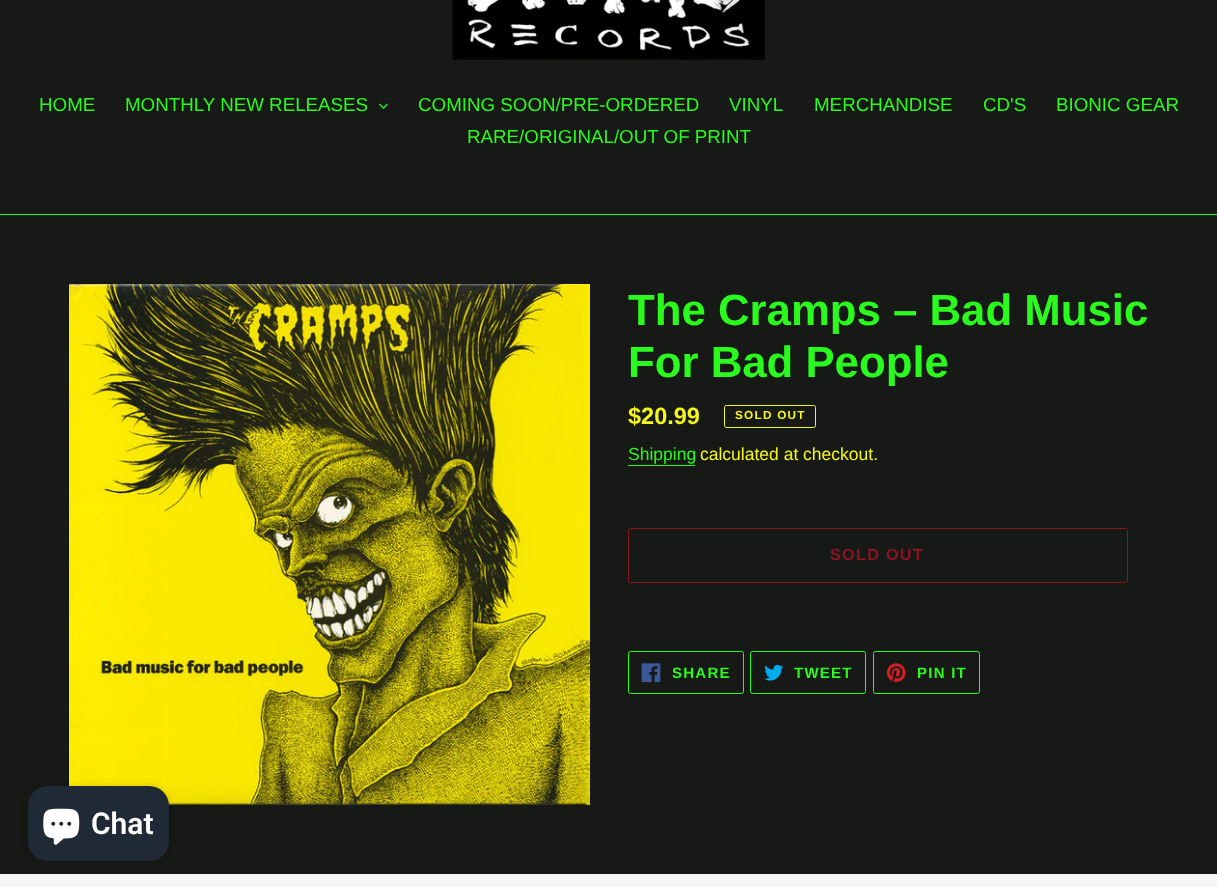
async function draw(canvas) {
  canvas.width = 1217
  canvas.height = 887
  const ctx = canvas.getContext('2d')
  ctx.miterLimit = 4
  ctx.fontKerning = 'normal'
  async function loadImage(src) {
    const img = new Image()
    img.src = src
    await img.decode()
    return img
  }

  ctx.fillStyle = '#171917'
  ctx.fillRect(0, 0, 1217, 887)
  ctx.drawImage(await loadImage('image0.png'), 452, 0, 313, 60)
  ctx.fillStyle = '#2afa1e'
  ctx.fillRect(0, 214, 1217, 1)
  ctx.font = '18.75px Liberation Sans'
  ctx.fillText('HOME', 39, 111)
  ctx.fillText('MONTHLY NEW RELEASES', 125, 111)
  ctx.drawImage(await loadImage('image1.png'), 379, 103, 9, 6)
  ctx.fillText('COMING SOON/PRE-ORDERED', 418, 111)
  ctx.fillText('VINYL', 729, 111)
  ctx.fillText('MERCHANDISE', 814, 111)
  ctx.fillText('CD\'S', 983, 111)
  ctx.fillText('BIONIC GEAR', 1056, 111)
  ctx.fillText('RARE/ORIGINAL/OUT OF PRINT', 467, 143)
  ctx.drawImage(await loadImage('image2.png'), 69, 284, 521, 521)
  ctx.font = 'bold 43.75px Liberation Sans'
  ctx.fillText('The Cramps – Bad Music', 628, 325)
  ctx.fillText('For Bad People', 628, 377)
  ctx.font = 'bold 23.5px Liberation Sans'
  ctx.fillStyle = '#f4f71b'
  ctx.fillText('$20.99', 628, 424)
  ctx.beginPath()
  ctx.roundRect(724.5, 405.5, 91, 22, 2)
  ctx.strokeStyle = '#f4f71b'
  ctx.stroke()
  ctx.letterSpacing = '1.25px'
  ctx.font = 'bold 11.75px Liberation Sans'
  ctx.fillText('SOLD OUT', 735, 419)
  ctx.letterSpacing = '0px'
  ctx.font = '17.5px Liberation Sans'
  ctx.fillStyle = '#2afa1e'
  ctx.fillText('Shipping', 628, 460)
  ctx.fillRect(628, 465, 67, 1)
  ctx.fillStyle = '#f4f71b'
  ctx.fillText('calculated at checkout.', 700, 460)
  ctx.beginPath()
  ctx.roundRect(628.5, 528.5, 499, 54, 2)
  ctx.strokeStyle = '#8a1421'
  ctx.stroke()
  ctx.letterSpacing = '1.25px'
  ctx.font = 'bold 16.25px Liberation Sans'
  ctx.fillStyle = '#8a1421'
  ctx.fillText('SOLD OUT', 830, 560)
  ctx.beginPath()
  ctx.roundRect(628.5, 651.5, 115, 42, 2)
  ctx.strokeStyle = '#2afa1e'
  ctx.stroke()
  ctx.drawImage(await loadImage('image3.png'), 641, 663, 20, 20)
  ctx.font = 'bold 15px Liberation Sans'
  ctx.fillStyle = '#2afa1e'
  ctx.fillText('SHARE', 672, 678)
  ctx.beginPath()
  ctx.roundRect(750.5, 651.5, 115, 42, 2)
  ctx.stroke()
  ctx.drawImage(await loadImage('image4.png'), 764, 664, 20, 17)
  ctx.fillText('TWEET', 794, 678)
  ctx.beginPath()
  ctx.roundRect(873.5, 651.5, 106, 42, 2)
  ctx.stroke()
  ctx.drawImage(await loadImage('image5.png'), 886, 663, 20, 20)
  ctx.fillText('PIN IT', 917, 678)
  ctx.fillStyle = '#f6f6f6'
  ctx.fillRect(0, 874, 1217, 13)
  ctx.fillStyle = '#00000026'
  ctx.filter = 'blur(3px)'
  ctx.beginPath()
  ctx.roundRect(28, 786, 141, 75, 20)
  ctx.fill()
  ctx.filter = 'none'
  ctx.fillStyle = '#202a36'
  ctx.beginPath()
  ctx.roundRect(28, 786, 141, 75, 20)
  ctx.fill()
  ctx.drawImage(await loadImage('image6.png'), 43, 808, 37, 37)
  ctx.letterSpacing = '0px'
  ctx.font = '600 30px Roboto'
  ctx.fillStyle = '#fff'
  ctx.fillText('Chat', 91, 834)
}

draw(document.querySelector('canvas'))
